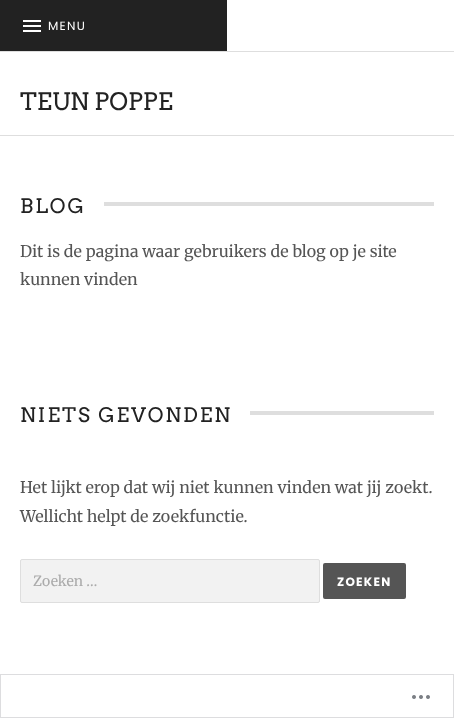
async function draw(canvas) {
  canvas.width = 454
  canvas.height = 718
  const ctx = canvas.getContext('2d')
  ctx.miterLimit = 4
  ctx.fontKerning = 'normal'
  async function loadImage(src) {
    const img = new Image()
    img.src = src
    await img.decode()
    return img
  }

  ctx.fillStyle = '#fff'
  ctx.fillRect(0, 0, 454, 718)
  ctx.fillStyle = '#dedede'
  ctx.fillRect(0, 51, 454, 1)
  ctx.fillStyle = '#222'
  ctx.fillRect(0, 0, 227, 51)
  ctx.drawImage(await loadImage('image0.png'), 23, 20, 18, 12)
  ctx.letterSpacing = '1.25px'
  ctx.font = '12px Poppins'
  ctx.fillStyle = '#fff'
  ctx.fillText('MENU', 48, 30)
  ctx.fillStyle = '#dedede'
  ctx.fillRect(0, 135, 454, 1)
  ctx.letterSpacing = '0px'
  ctx.font = '24px Arvo'
  ctx.fillStyle = '#222'
  ctx.fillText('TEUN POPPE', 20, 110)
  ctx.letterSpacing = '2px'
  ctx.font = '20px Arvo'
  ctx.fillText('BLOG', 20, 213)
  ctx.fillStyle = '#dedede'
  ctx.fillRect(104, 202, 330, 4)
  ctx.letterSpacing = '0px'
  ctx.font = '16px Merriweather'
  ctx.fillStyle = '#555'
  ctx.fillText('Dit is de pagina waar gebruikers de blog op je site', 20, 257)
  ctx.fillText('kunnen vinden', 20, 285)
  ctx.letterSpacing = '2px'
  ctx.font = '20px Arvo'
  ctx.fillStyle = '#222'
  ctx.fillText('NIETS GEVONDEN', 20, 422)
  ctx.fillStyle = '#dedede'
  ctx.fillRect(250, 411, 184, 4)
  ctx.letterSpacing = '0px'
  ctx.font = '16px Merriweather'
  ctx.fillStyle = '#555'
  ctx.fillText('Het lijkt erop dat wij niet kunnen vinden wat jij zoekt.', 20, 493)
  ctx.fillText('Wellicht helpt de zoekfunctie.', 20, 522)
  ctx.fillStyle = '#f2f2f2'
  ctx.beginPath()
  ctx.roundRect(20.5, 559.5, 299, 43, 1.5)
  ctx.fill()
  ctx.strokeStyle = '#dedede'
  ctx.stroke()
  ctx.font = '14px Merriweather'
  ctx.fillStyle = '#ababab'
  ctx.fillText('Zoeken …', 33, 586)
  ctx.fillStyle = '#555'
  ctx.beginPath()
  ctx.roundRect(324, 564, 81, 34, 1)
  ctx.fill()
  ctx.strokeStyle = '#555'
  ctx.lineWidth = 2
  ctx.stroke()
  ctx.letterSpacing = '1.25px'
  ctx.font = 'bold 12px Poppins'
  ctx.fillStyle = '#fff'
  ctx.fillText('ZOEKEN', 337, 586)
  ctx.strokeStyle = '#dddddf'
  ctx.lineWidth = 1
  ctx.strokeRect(0.5, 674.5, 453, 43)
  ctx.drawImage(await loadImage('image1.png'), 412, 695, 18, 4)
}

draw(document.querySelector('canvas'))
